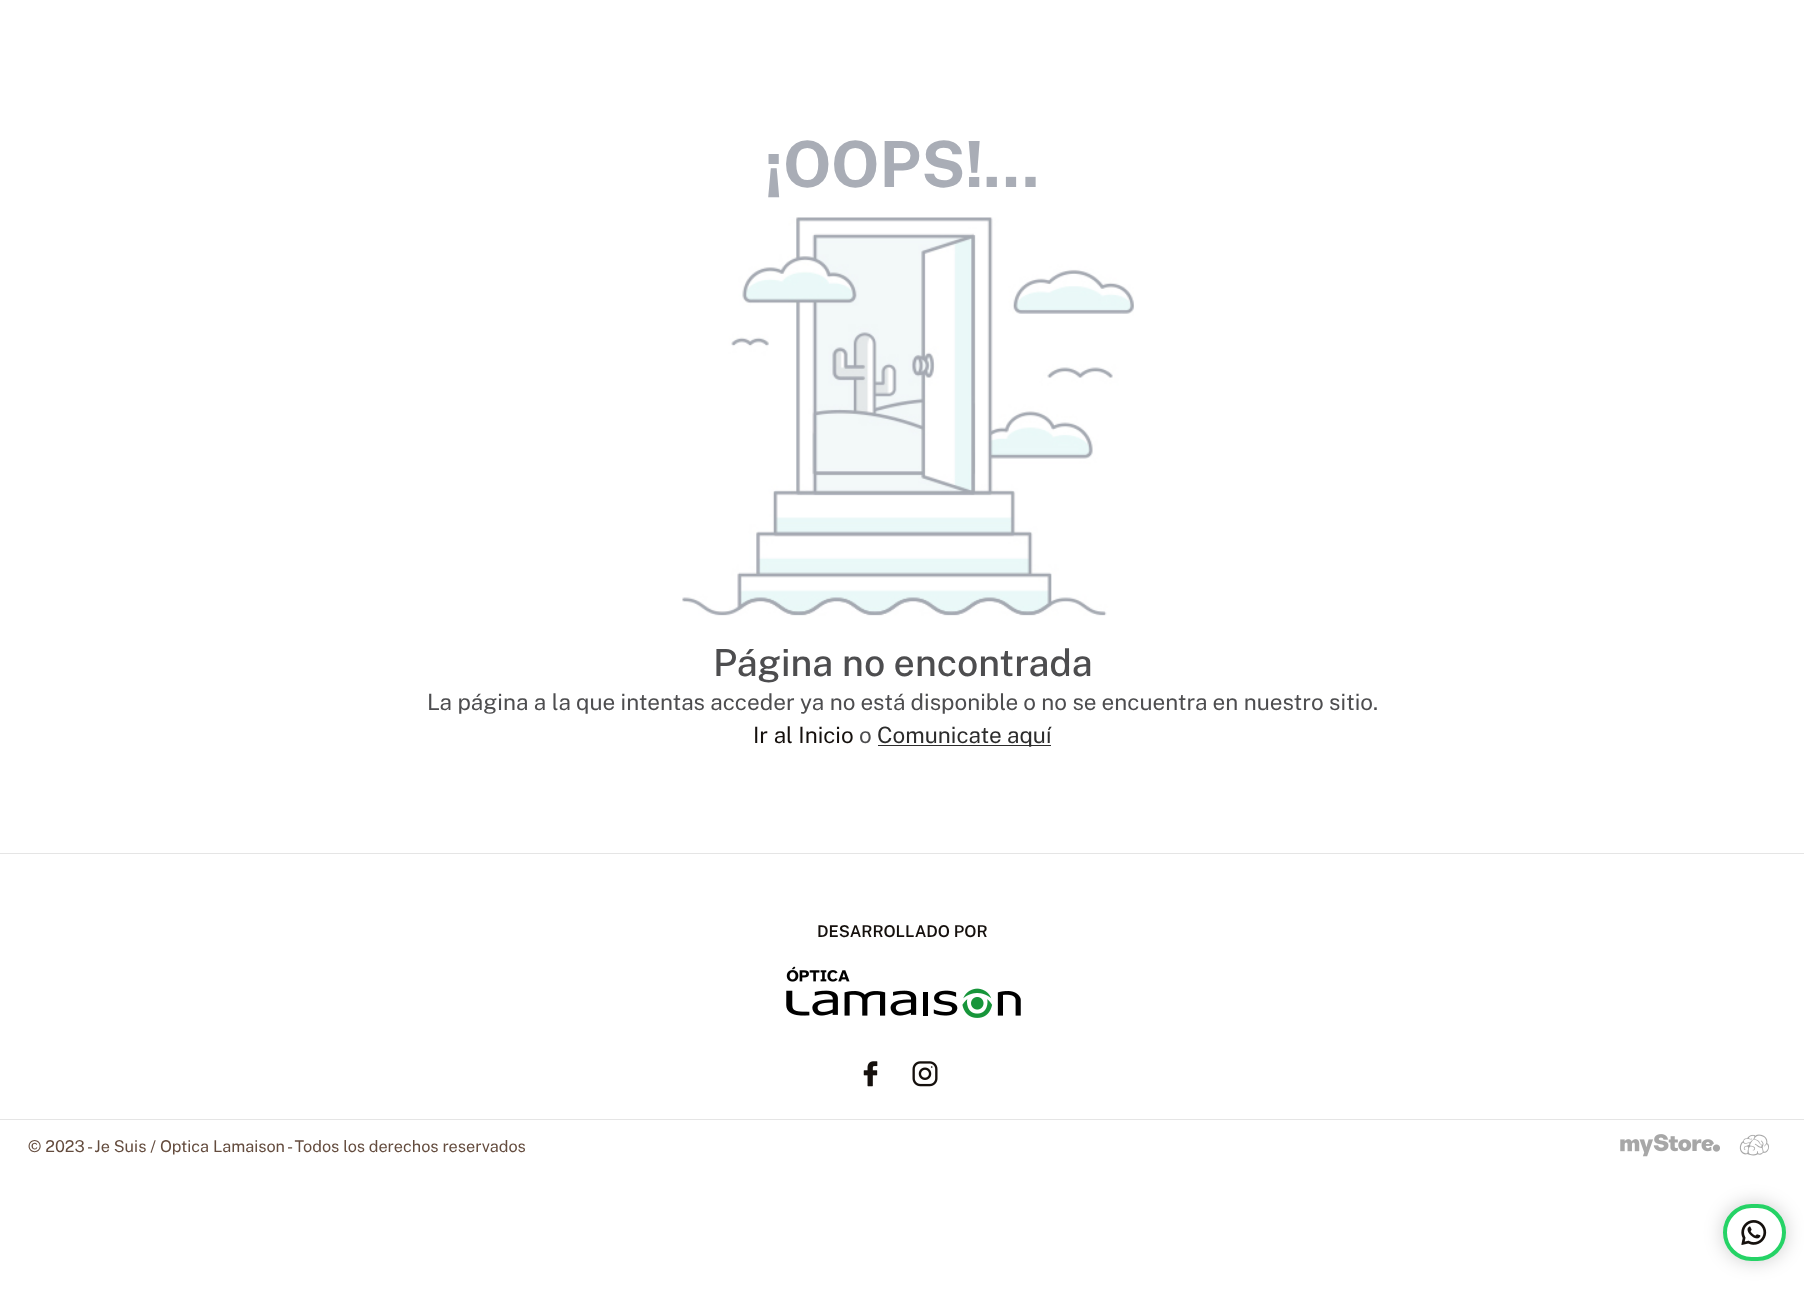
async function draw(canvas) {
  canvas.width = 1804
  canvas.height = 1304
  const ctx = canvas.getContext('2d')
  ctx.miterLimit = 4
  ctx.fontKerning = 'normal'
  async function loadImage(src) {
    const img = new Image()
    img.src = src
    await img.decode()
    return img
  }

  ctx.fillStyle = '#fff'
  ctx.fillRect(0, 0, 1804, 1304)
  ctx.font = 'bold 63.75px Public Sans'
  ctx.fillStyle = '#a9adb6'
  ctx.fillText('¡OOPS!...', 765, 187)
  ctx.drawImage(await loadImage('image0.png'), 682, 217, 452, 399)
  ctx.font = '500 37.5px Public Sans'
  ctx.fillStyle = '#4d4d4f'
  ctx.fillText('Página no encontrada', 713, 676)
  ctx.font = '22.5px Public Sans'
  ctx.fillText('La página a la que intentas acceder ya no está disponible o no se encuentra en nuestro sitio.', 427, 710)
  ctx.fillStyle = '#15100d'
  ctx.fillText('Ir al Inicio', 753, 743)
  ctx.fillStyle = '#4d4d4f'
  ctx.fillText('o', 859, 743)
  ctx.fillStyle = '#2c2c2c'
  ctx.fillRect(878, 745, 173, 1)
  ctx.fillText('Comunicate aquí', 877, 743)
  ctx.fillStyle = '#e5e5e5'
  ctx.fillRect(0, 853, 1804, 1)
  ctx.fillRect(0, 1119, 1804, 1)
  ctx.font = '600 16.25px Public Sans'
  ctx.fillStyle = '#15100d'
  ctx.fillText('DESARROLLADO POR', 817, 937)
  ctx.drawImage(await loadImage('image1.png'), 786, 966, 235, 52)
  ctx.drawImage(await loadImage('image2.png'), 863, 1061, 15, 26)
  ctx.drawImage(await loadImage('image3.png'), 912, 1061, 26, 26)
  ctx.font = '16.25px Public Sans'
  ctx.fillStyle = '#644c3e'
  ctx.fillText('© 2023 - Je Suis / Optica Lamaison - Todos los derechos reservados', 28, 1152)
  ctx.drawImage(await loadImage('image4.png'), 1620, 1134, 100, 23)
  ctx.drawImage(await loadImage('image5.png'), 1739, 1134, 30, 22)
  ctx.fillStyle = '#00000033'
  ctx.filter = 'blur(9.5px)'
  ctx.beginPath()
  ctx.roundRect(1723, 1204, 63, 57, 28.5)
  ctx.fill()
  ctx.filter = 'none'
  ctx.fillStyle = '#fff'
  ctx.beginPath()
  ctx.roundRect(1725, 1206, 59, 53, 26.5)
  ctx.fill()
  ctx.strokeStyle = '#25d366'
  ctx.lineWidth = 4
  ctx.stroke()
  ctx.drawImage(await loadImage('image6.png'), 1741, 1220, 26, 25)
}

draw(document.querySelector('canvas'))
